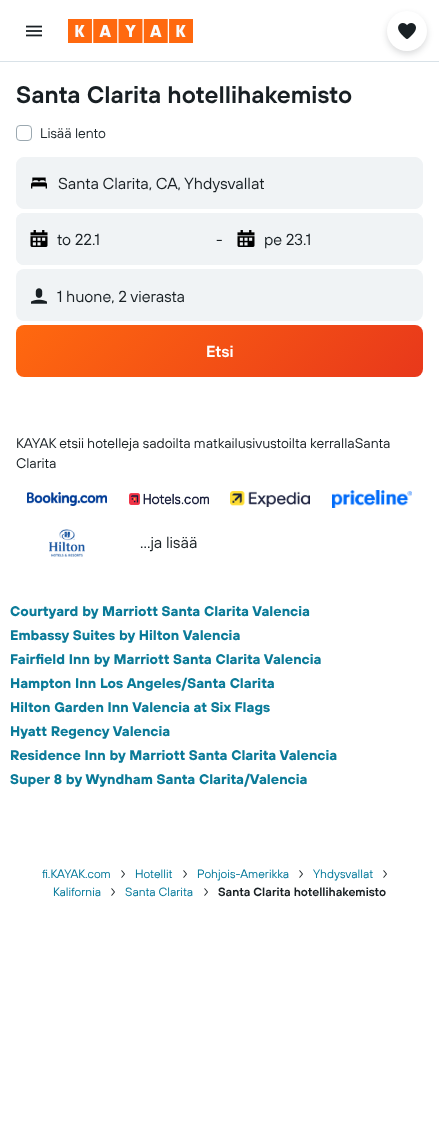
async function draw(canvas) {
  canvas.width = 439
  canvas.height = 1142
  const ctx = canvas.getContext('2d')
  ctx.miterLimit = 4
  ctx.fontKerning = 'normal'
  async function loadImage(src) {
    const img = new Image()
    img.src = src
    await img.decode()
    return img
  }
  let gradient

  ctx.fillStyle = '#fff'
  ctx.fillRect(0, 0, 439, 1142)
  ctx.fillStyle = '#d9e2e8'
  ctx.fillRect(0, 61, 439, 1)
  ctx.drawImage(await loadImage('image0.png'), 26, 25, 16, 12)
  ctx.drawImage(await loadImage('image1.png'), 68, 19, 125, 24)
  ctx.fillStyle = '#19202429'
  ctx.filter = 'blur(3px)'
  ctx.beginPath()
  ctx.roundRect(387, 14, 40, 40, 20)
  ctx.fill()
  ctx.filter = 'none'
  ctx.fillStyle = '#fff'
  ctx.beginPath()
  ctx.arc(407, 31, 20, 0, 2 * Math.PI)
  ctx.fill()
  ctx.drawImage(await loadImage('image2.png'), 398, 23, 18, 16)
  ctx.font = '600 24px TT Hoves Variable'
  ctx.fillStyle = '#192024'
  ctx.fillText('Santa Clarita hotellihakemisto', 16, 103)
  ctx.beginPath()
  ctx.roundRect(16.5, 125.5, 15, 15, 3.5)
  ctx.strokeStyle = '#9ba8b0'
  ctx.stroke()
  ctx.font = '14px TT Hoves Variable'
  ctx.fillStyle = '#1f282d'
  ctx.fillText('Lisää lento', 40, 138)
  ctx.fillStyle = '#f0f3f5'
  ctx.beginPath()
  ctx.roundRect(16.5, 157.5, 406, 51, 7.5)
  ctx.fill()
  ctx.strokeStyle = '#f0f3f5'
  ctx.stroke()
  ctx.drawImage(await loadImage('image3.png'), 31, 177, 16, 12)
  ctx.font = '16px TT Hoves Variable'
  ctx.fillStyle = '#192024'
  ctx.fillText('Santa Clarita, CA, Yhdysvallat', 58, 189)
  ctx.fillStyle = '#f0f3f5'
  ctx.beginPath()
  ctx.roundRect(16, 213, 407, 52, 8)
  ctx.fill()
  ctx.beginPath()
  ctx.roundRect(16, 213, 200, 52, 8)
  ctx.fill()
  ctx.drawImage(await loadImage('image4.png'), 30, 230, 18, 17)
  ctx.fillStyle = '#192024'
  ctx.fillText('to 22.1', 57, 245)
  ctx.fillText('-', 216, 245)
  ctx.fillStyle = '#f0f3f5'
  ctx.beginPath()
  ctx.roundRect(223, 213, 200, 52, 8)
  ctx.fill()
  ctx.drawImage(await loadImage('image4.png'), 237, 230, 18, 17)
  ctx.fillStyle = '#192024'
  ctx.fillText('pe 23.1', 264, 245)
  ctx.fillStyle = '#f0f3f5'
  ctx.beginPath()
  ctx.roundRect(16, 269, 407, 52, 8)
  ctx.fill()
  ctx.drawImage(await loadImage('image5.png'), 31, 288, 16, 16)
  ctx.fillStyle = '#192024'
  ctx.fillText('1 huone, 2 vierasta', 57, 302)
  gradient = ctx.createLinearGradient(105, 236, 334, 466)
  gradient.addColorStop(0, '#ff690f')
  gradient.addColorStop(1, '#e8381b')
  ctx.fillStyle = gradient
  ctx.beginPath()
  ctx.roundRect(16, 325, 407, 52, 8)
  ctx.fill()
  ctx.font = '600 16px TT Hoves Variable'
  ctx.fillStyle = '#fff'
  ctx.fillText('Etsi', 206, 357)
  ctx.font = '14px TT Hoves Variable'
  ctx.fillStyle = '#192024'
  ctx.fillText('KAYAK etsii hotelleja sadoilta matkailusivustoilta kerrallaSanta', 16, 448)
  ctx.fillText('Clarita', 16, 468)
  ctx.drawImage(await loadImage('image6.png'), 27, 492, 80, 14)
  ctx.drawImage(await loadImage('image7.png'), 129, 493, 80, 12)
  ctx.drawImage(await loadImage('image8.png'), 230, 491, 80, 16)
  ctx.drawImage(await loadImage('image9.png'), 332, 490, 80, 18)
  ctx.drawImage(await loadImage('image10.png'), 49, 529, 36, 28)
  ctx.font = '16px TT Hoves Variable'
  ctx.fillText('...ja lisää', 140, 548)
  ctx.font = 'bold 14px TT Hoves Variable'
  ctx.fillStyle = '#0b7b99'
  ctx.fillText('Courtyard by Marriott Santa Clarita Valencia', 10, 616)
  ctx.fillText('Embassy Suites by Hilton Valencia', 10, 640)
  ctx.fillText('Fairfield Inn by Marriott Santa Clarita Valencia', 10, 664)
  ctx.fillText('Hampton Inn Los Angeles/Santa Clarita', 10, 688)
  ctx.fillText('Hilton Garden Inn Valencia at Six Flags', 10, 712)
  ctx.fillText('Hyatt Regency Valencia', 10, 736)
  ctx.fillText('Residence Inn by Marriott Santa Clarita Valencia', 10, 760)
  ctx.fillText('Super 8 by Wyndham Santa Clarita/Valencia', 10, 784)
  ctx.font = '12px TT Hoves Variable'
  ctx.fillStyle = '#079'
  ctx.fillText('fi.KAYAK.com', 42, 878)
  ctx.drawImage(await loadImage('image11.png'), 121, 870, 4, 8)
  ctx.fillText('Hotellit', 135, 878)
  ctx.drawImage(await loadImage('image11.png'), 183, 870, 4, 8)
  ctx.fillText('Pohjois-Amerikka', 197, 878)
  ctx.drawImage(await loadImage('image11.png'), 299, 870, 4, 8)
  ctx.fillText('Yhdysvallat', 313, 878)
  ctx.drawImage(await loadImage('image11.png'), 383, 870, 4, 8)
  ctx.fillText('Kalifornia', 53, 896)
  ctx.drawImage(await loadImage('image11.png'), 111, 888, 4, 8)
  ctx.fillText('Santa Clarita', 125, 896)
  ctx.drawImage(await loadImage('image11.png'), 204, 888, 4, 8)
  ctx.font = '600 12px TT Hoves Variable'
  ctx.fillStyle = '#192024'
  ctx.fillText('Santa Clarita hotellihakemisto', 218, 896)
}

draw(document.querySelector('canvas'))
